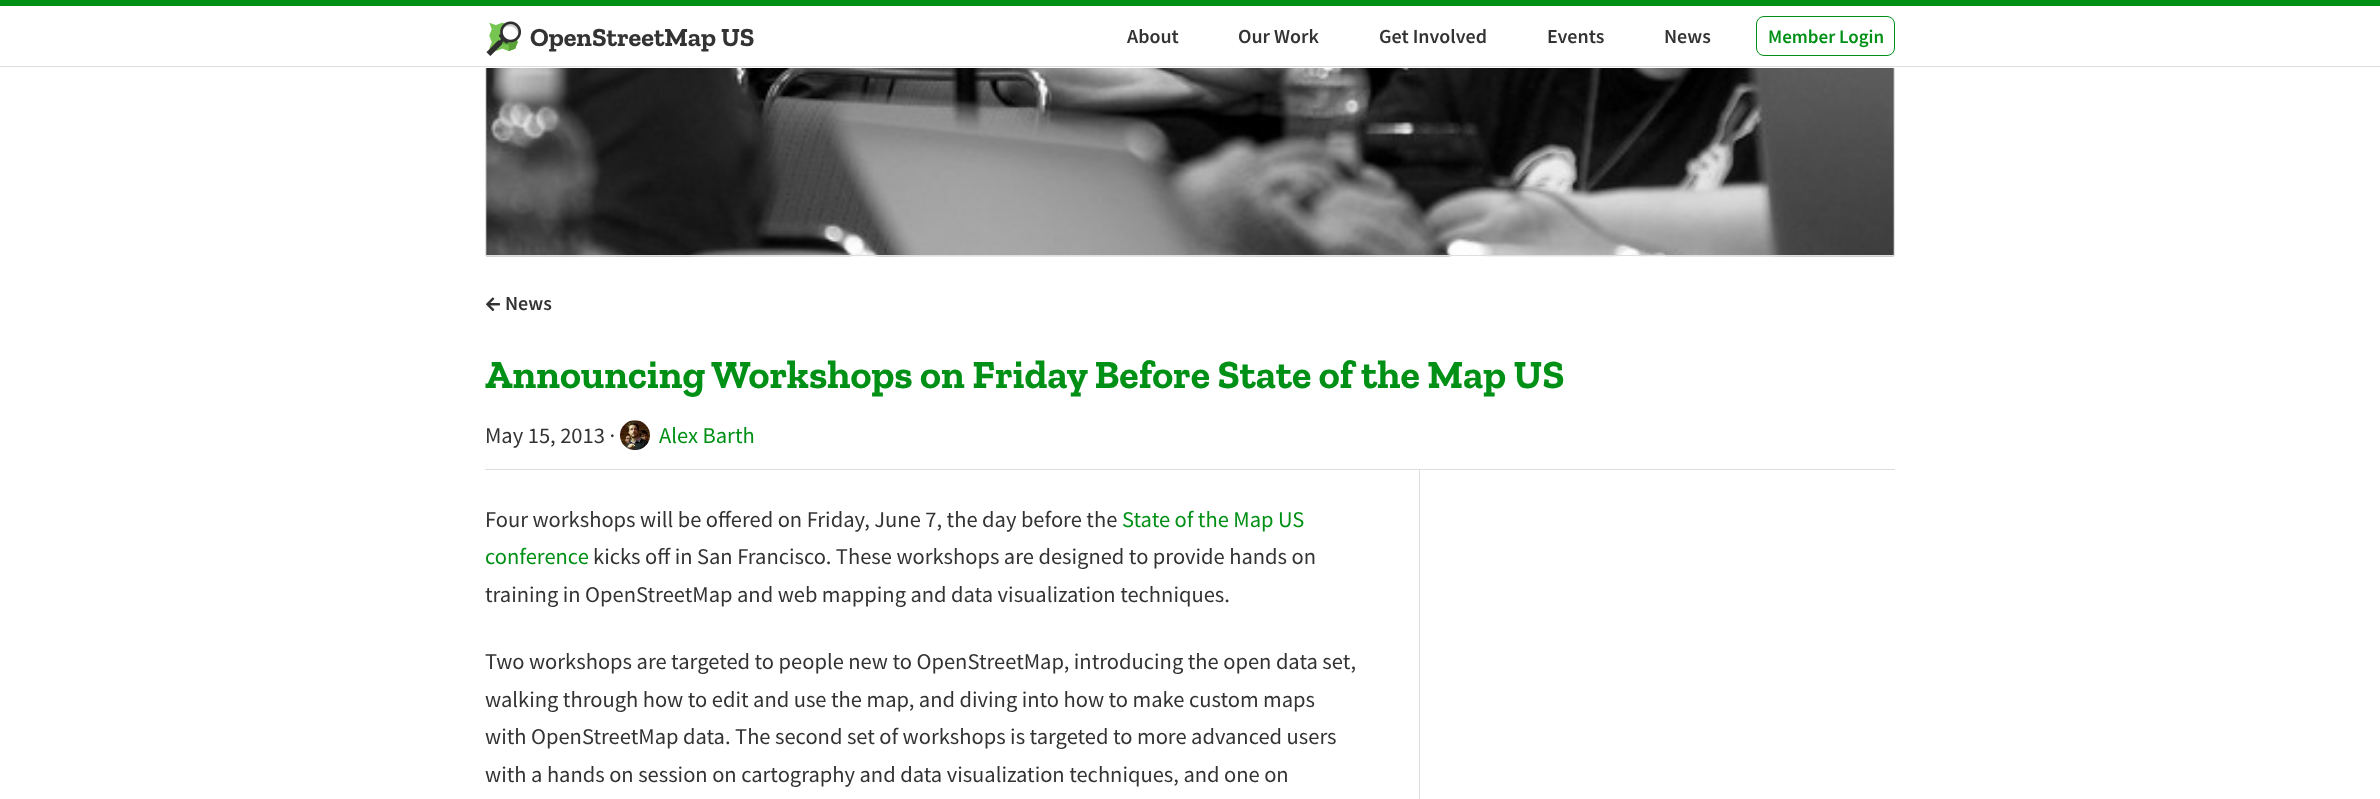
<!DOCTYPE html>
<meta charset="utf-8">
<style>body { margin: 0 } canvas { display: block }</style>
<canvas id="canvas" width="2380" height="799"></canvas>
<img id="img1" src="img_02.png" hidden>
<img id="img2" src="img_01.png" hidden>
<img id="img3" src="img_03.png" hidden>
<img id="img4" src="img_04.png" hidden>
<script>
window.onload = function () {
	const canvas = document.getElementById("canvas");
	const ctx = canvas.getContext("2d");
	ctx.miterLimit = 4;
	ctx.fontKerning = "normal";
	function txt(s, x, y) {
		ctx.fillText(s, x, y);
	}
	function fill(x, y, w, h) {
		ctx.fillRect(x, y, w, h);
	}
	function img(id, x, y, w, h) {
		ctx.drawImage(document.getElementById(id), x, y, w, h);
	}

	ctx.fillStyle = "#FFFFFF";
	fill(0, 0, 2380, 799);
	img("img1", 486, 68, 1408, 189);
	ctx.strokeStyle = "#DEDEDE";
	ctx.strokeRect(485.5, -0.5, 1409, 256);
	fill(485, 6, 1410, 62);
	ctx.fillStyle = "#009016";
	fill(0, 0, 2380, 6);
	ctx.fillStyle = "#DEDEDE";
	fill(0, 66, 2380, 1);
	img("img2", 486, 21, 35, 35);
	ctx.beginPath();
	ctx.roundRect(1756.5, 16.5, 138, 39, 7.5);
	ctx.strokeStyle = "#009016";
	ctx.stroke();
	img("img3", 486, 297, 14, 14);
	fill(485, 469, 1410, 1);
	img("img4", 620, 420, 30, 31);
	fill(1419, 470, 1, 329);
	ctx.font = "bold 26.25px Zilla Slab";
	ctx.fillStyle = "#333333";
	txt("OpenStreetMap US", 530, 46);
	ctx.font = "600 20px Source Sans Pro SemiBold";
	txt("About", 1127, 43);
	txt("Our Work", 1238, 43);
	txt("Get Involved", 1379, 43);
	txt("Events", 1547, 43);
	txt("News", 1664, 43);
	ctx.font = "600 19px Source Sans Pro SemiBold";
	ctx.fillStyle = "#009016";
	txt("Member Login", 1768, 43);
	ctx.font = "600 20px Source Sans Pro SemiBold";
	ctx.fillStyle = "#333333";
	txt("News", 505, 310);
	ctx.font = "bold 40px Zilla Slab";
	ctx.fillStyle = "#009016";
	txt("Announcing Workshops on Friday Before State of the Map US", 485, 388);
	ctx.font = "22.5px Source Sans Pro";
	ctx.fillStyle = "#333333";
	txt("May 15, 2013 ·", 485, 443);
	ctx.fillStyle = "#009016";
	txt("Alex Barth", 659, 443);
	ctx.fillStyle = "#333333";
	txt("Four workshops will be offered on Friday, June 7, the day before the", 485, 527);
	ctx.fillStyle = "#009016";
	txt("State of the Map US", 1122, 527);
	txt("conference", 485, 564);
	ctx.fillStyle = "#333333";
	txt("kicks off in San Francisco. These workshops are designed to provide hands on", 593, 564);
	txt("training in OpenStreetMap and web mapping and data visualization techniques.", 485, 602);
	txt("Two workshops are targeted to people new to OpenStreetMap, introducing the open data set,", 485, 669);
	txt("walking through how to edit and use the map, and diving into how to make custom maps", 485, 707);
	txt("with OpenStreetMap data. The second set of workshops is targeted to more advanced users", 485, 744);
	txt("with a hands on session on cartography and data visualization techniques, and one on", 485, 782);
};
</script>
